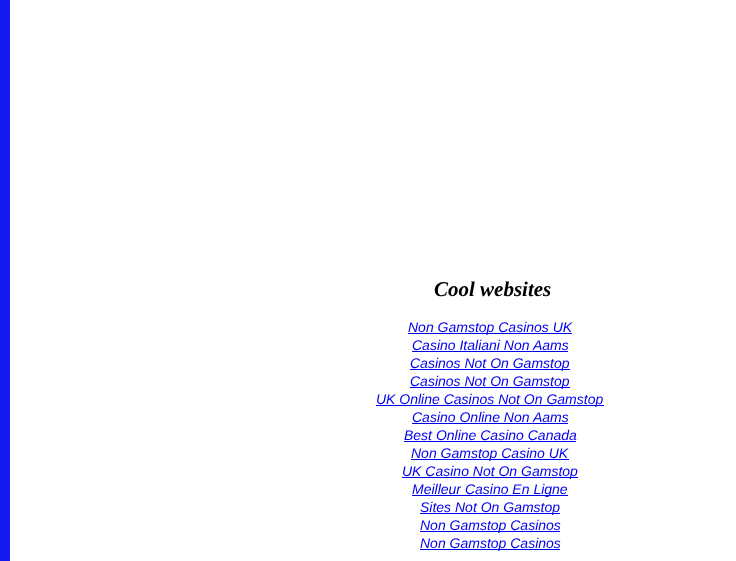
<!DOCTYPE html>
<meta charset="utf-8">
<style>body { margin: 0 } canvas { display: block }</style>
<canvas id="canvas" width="736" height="561"></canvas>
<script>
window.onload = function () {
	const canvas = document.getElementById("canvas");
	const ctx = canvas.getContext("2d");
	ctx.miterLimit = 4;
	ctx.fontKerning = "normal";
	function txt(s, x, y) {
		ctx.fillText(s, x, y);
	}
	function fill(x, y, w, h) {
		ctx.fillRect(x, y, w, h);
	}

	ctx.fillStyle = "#1618F2";
	fill(0, 0, 736, 561);
	ctx.fillStyle = "#FFFFFF";
	fill(10, 0, 726, 561);
	ctx.fillStyle = "#0000EE";
	fill(408, 333, 164, 1);
	fill(412, 351, 156, 1);
	fill(410, 369, 160, 1);
	fill(410, 387, 160, 1);
	fill(376, 405, 228, 1);
	fill(412, 423, 156, 1);
	fill(404, 441, 172, 1);
	fill(411, 459, 158, 1);
	fill(402, 477, 176, 1);
	fill(412, 495, 156, 1);
	fill(420, 513, 140, 1);
	fill(420, 531, 140, 1);
	fill(420, 549, 140, 1);
	ctx.font = "italic bold 21px Liberation Serif";
	ctx.fillStyle = "#000000";
	txt("Cool websites", 434, 296);
	ctx.font = "italic 14px Liberation Sans";
	ctx.fillStyle = "#0000EE";
	txt("Non Gamstop Casinos UK", 408, 332);
	txt("Casino Italiani Non Aams", 412, 350);
	txt("Casinos Not On Gamstop", 410, 368);
	txt("Casinos Not On Gamstop", 410, 386);
	txt("UK Online Casinos Not On Gamstop", 376, 404);
	txt("Casino Online Non Aams", 412, 422);
	txt("Best Online Casino Canada", 404, 440);
	txt("Non Gamstop Casino UK", 411, 458);
	txt("UK Casino Not On Gamstop", 402, 476);
	txt("Meilleur Casino En Ligne", 412, 494);
	txt("Sites Not On Gamstop", 420, 512);
	txt("Non Gamstop Casinos", 420, 530);
	txt("Non Gamstop Casinos", 420, 548);
};
</script>
